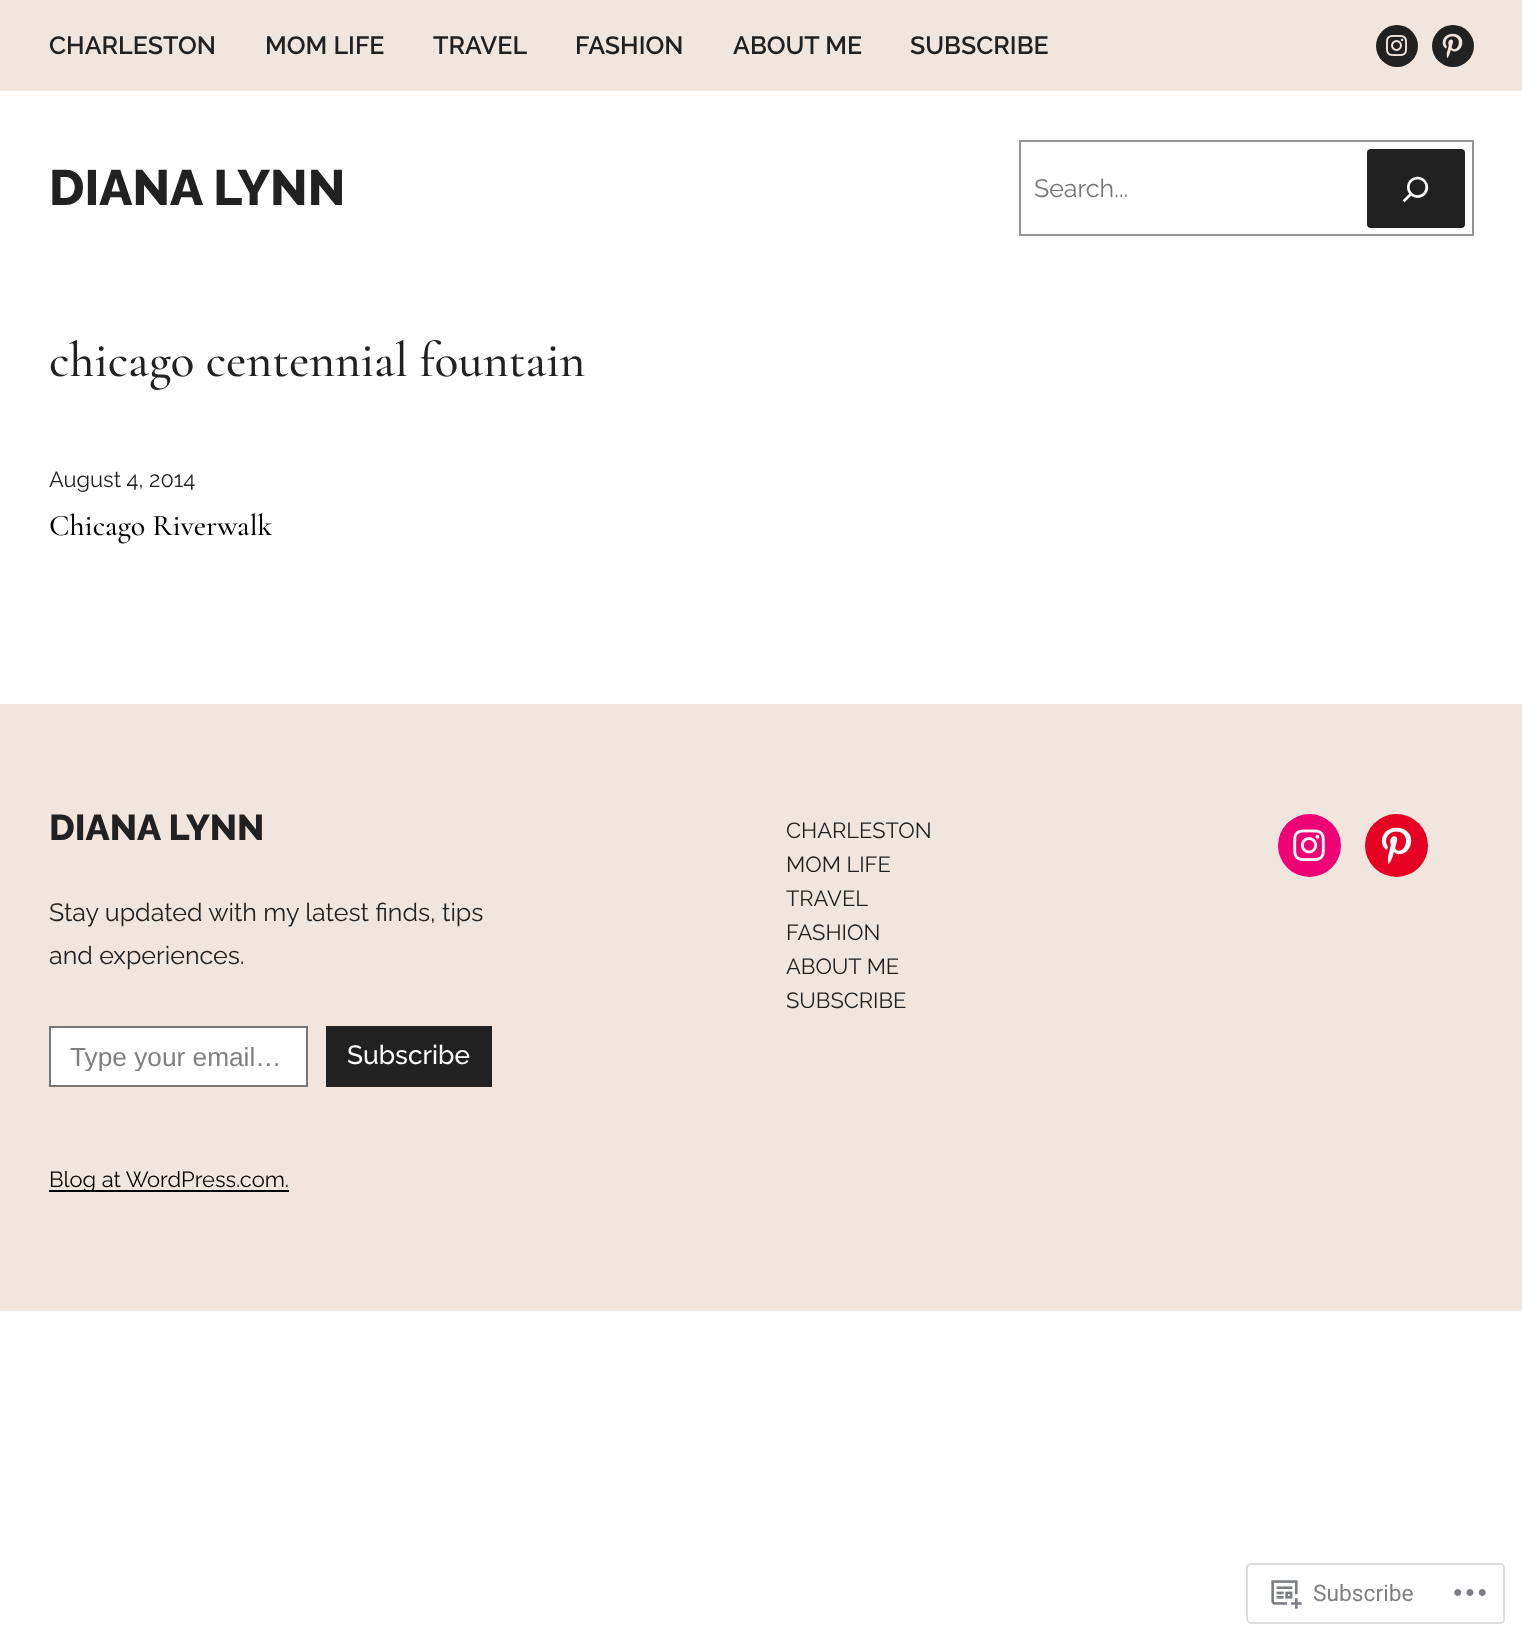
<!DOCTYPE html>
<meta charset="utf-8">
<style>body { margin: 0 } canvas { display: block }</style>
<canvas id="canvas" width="1522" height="1641"></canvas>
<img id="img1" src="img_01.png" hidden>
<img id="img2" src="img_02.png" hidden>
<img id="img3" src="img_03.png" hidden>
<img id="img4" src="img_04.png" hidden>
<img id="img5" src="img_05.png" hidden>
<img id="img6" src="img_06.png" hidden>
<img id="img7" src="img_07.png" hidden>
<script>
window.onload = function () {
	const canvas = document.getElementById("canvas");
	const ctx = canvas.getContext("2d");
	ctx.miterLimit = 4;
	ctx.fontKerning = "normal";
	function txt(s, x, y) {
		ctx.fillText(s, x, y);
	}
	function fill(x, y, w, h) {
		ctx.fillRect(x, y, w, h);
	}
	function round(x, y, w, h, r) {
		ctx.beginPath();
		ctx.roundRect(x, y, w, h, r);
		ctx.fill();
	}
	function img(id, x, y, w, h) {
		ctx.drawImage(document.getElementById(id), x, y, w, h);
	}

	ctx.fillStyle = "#FFFFFF";
	fill(0, 0, 1522, 1641);
	ctx.fillStyle = "#F1E6DE";
	fill(0, 0, 1522, 91);
	ctx.fillStyle = "#212121";
	ctx.beginPath();
	ctx.arc(1397, 46, 21, 0, Math.PI * 2);
	ctx.fill();
	img("img1", 1386, 35, 21, 21);
	ctx.beginPath();
	ctx.arc(1453, 46, 21, 0, Math.PI * 2);
	ctx.fill();
	img("img2", 1442, 33, 21, 25);
	ctx.strokeStyle = "#949494";
	ctx.lineWidth = 2;
	ctx.strokeRect(1020, 141, 453, 94);
	round(1367, 149, 98, 79, 4);
	img("img3", 1402, 176, 27, 27);
	ctx.fillStyle = "#F1E6DE";
	fill(0, 704, 1522, 607);
	ctx.fillStyle = "#FFFFFF";
	ctx.beginPath();
	ctx.rect(50, 1027, 257, 59);
	ctx.fill();
	ctx.strokeStyle = "#767676";
	ctx.stroke();
	ctx.fillStyle = "#212121";
	fill(326, 1026, 166, 61);
	ctx.fillStyle = "#F00075";
	ctx.beginPath();
	ctx.arc(1309.5, 845.5, 31.5, 0, Math.PI * 2);
	ctx.fill();
	img("img4", 1293, 829, 32, 32);
	ctx.fillStyle = "#E60122";
	ctx.beginPath();
	ctx.arc(1396.5, 845.5, 31.5, 0, Math.PI * 2);
	ctx.fill();
	img("img5", 1381, 827, 31, 37);
	ctx.fillStyle = "#000000";
	fill(49, 1190, 240, 2);
	ctx.beginPath();
	ctx.roundRect(1247, 1564, 257, 59, 4);
	ctx.strokeStyle = "#DDDDDF";
	ctx.stroke();
	img("img6", 1271, 1580, 31, 29);
	img("img7", 1454, 1589, 32, 7);
	ctx.font = "600 25px Raleway";
	ctx.fillStyle = "#212121";
	txt("CHARLESTON", 49, 54);
	txt("MOM LIFE", 265, 54);
	txt("TRAVEL", 433, 54);
	txt("FASHION", 575, 54);
	txt("ABOUT ME", 733, 54);
	txt("SUBSCRIBE", 910, 54);
	ctx.font = "800 49.5px Raleway";
	txt("DIANA LYNN", 49, 205);
	ctx.font = "25px Raleway";
	ctx.fillStyle = "#757575";
	txt("Search...", 1034, 197);
	ctx.font = "500 49.5px Cormorant Garamond";
	ctx.fillStyle = "#212121";
	txt("chicago centennial fountain", 49, 376);
	ctx.font = "21.9px Raleway";
	txt("August 4, 2014", 49, 487);
	ctx.font = "500 30px Cormorant Garamond";
	ctx.fillStyle = "#000000";
	txt("Chicago Riverwalk", 49, 535);
	ctx.font = "800 36px Raleway";
	ctx.fillStyle = "#212121";
	txt("DIANA LYNN", 49, 840);
	ctx.font = "25px Raleway";
	txt("Stay updated with my latest finds, tips", 49, 921);
	txt("and experiences.", 49, 964);
	ctx.save();
	ctx.beginPath();
	ctx.rect(70, 1041, 217, 30);
	ctx.clip();
	ctx.font = "26.25px Liberation Sans";
	ctx.fillStyle = "#808080";
	txt("Type your email…", 70, 1066);
	ctx.restore();
	ctx.font = "500 26.25px Raleway";
	ctx.fillStyle = "#FFFFFF";
	txt("Subscribe", 347, 1064);
	ctx.font = "21.9px Raleway";
	ctx.fillStyle = "#212121";
	txt("CHARLESTON", 786, 838);
	txt("MOM LIFE", 786, 872);
	txt("TRAVEL", 786, 906);
	txt("FASHION", 786, 940);
	txt("ABOUT ME", 786, 974);
	txt("SUBSCRIBE", 786, 1008);
	ctx.fillStyle = "#000000";
	txt("Blog at WordPress.com.", 49, 1187);
	ctx.font = "22.75px Roboto";
	ctx.fillStyle = "#808080";
	txt("Subscribe", 1313, 1601);
};
</script>
